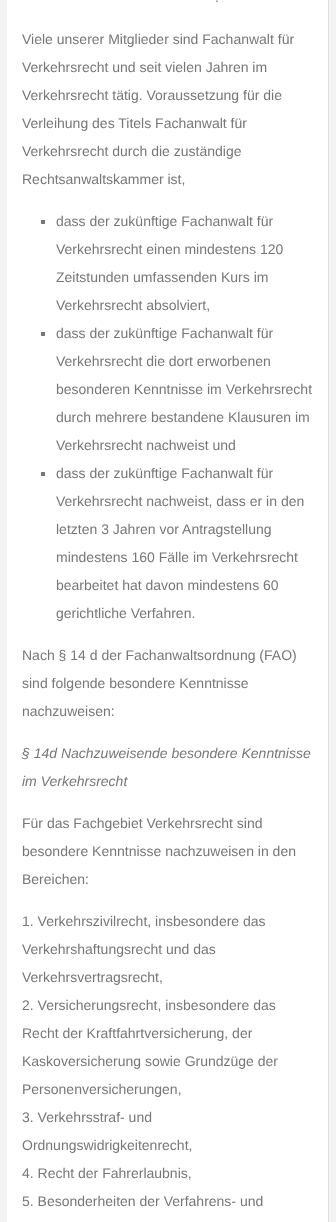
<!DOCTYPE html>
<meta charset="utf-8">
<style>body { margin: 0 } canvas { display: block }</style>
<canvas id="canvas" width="336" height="1222"></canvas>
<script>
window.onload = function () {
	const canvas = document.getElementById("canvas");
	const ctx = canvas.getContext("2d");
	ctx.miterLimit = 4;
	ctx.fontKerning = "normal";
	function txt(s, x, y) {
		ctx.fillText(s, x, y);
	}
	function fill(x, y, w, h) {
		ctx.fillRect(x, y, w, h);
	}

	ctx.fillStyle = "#F3F3F3";
	fill(0, 0, 336, 1222);
	ctx.fillStyle = "#FFFFFF";
	fill(7, 0, 321, 1222);
	ctx.fillStyle = "#E1E1E1";
	fill(328, 0, 1, 1222);
	ctx.fillStyle = "#777777";
	fill(41, 220, 4, 4);
	fill(41, 332, 4, 4);
	fill(41, 472, 4, 4);
	ctx.font = "14px Liberation Sans";
	txt(".", 215, 2);
	txt("Viele unserer Mitglieder sind Fachanwalt für", 22, 44);
	txt("Verkehrsrecht und seit vielen Jahren im", 22, 72);
	txt("Verkehrsrecht tätig. Voraussetzung für die", 22, 100);
	txt("Verleihung des Titels Fachanwalt für", 22, 128);
	txt("Verkehrsrecht durch die zuständige", 22, 156);
	txt("Rechtsanwaltskammer ist,", 22, 184);
	txt("dass der zukünftige Fachanwalt für", 56, 226);
	txt("Verkehrsrecht einen mindestens 120", 56, 254);
	txt("Zeitstunden umfassenden Kurs im", 56, 282);
	txt("Verkehrsrecht absolviert,", 56, 310);
	txt("dass der zukünftige Fachanwalt für", 56, 338);
	txt("Verkehrsrecht die dort erworbenen", 56, 366);
	txt("besonderen Kenntnisse im Verkehrsrecht", 56, 394);
	txt("durch mehrere bestandene Klausuren im", 56, 422);
	txt("Verkehrsrecht nachweist und", 56, 450);
	txt("dass der zukünftige Fachanwalt für", 56, 478);
	txt("Verkehrsrecht nachweist, dass er in den", 56, 506);
	txt("letzten 3 Jahren vor Antragstellung", 56, 534);
	txt("mindestens 160 Fälle im Verkehrsrecht", 56, 562);
	txt("bearbeitet hat davon mindestens 60", 56, 590);
	txt("gerichtliche Verfahren.", 56, 618);
	txt("Nach § 14 d der Fachanwaltsordnung (FAO)", 22, 660);
	txt("sind folgende besondere Kenntnisse", 22, 688);
	txt("nachzuweisen:", 22, 716);
	ctx.font = "italic 14px Liberation Sans";
	txt("§ 14d Nachzuweisende besondere Kenntnisse", 22, 758);
	txt("im Verkehrsrecht", 22, 786);
	ctx.font = "14px Liberation Sans";
	txt("Für das Fachgebiet Verkehrsrecht sind", 22, 828);
	txt("besondere Kenntnisse nachzuweisen in den", 22, 856);
	txt("Bereichen:", 22, 884);
	txt("1. Verkehrszivilrecht, insbesondere das", 22, 926);
	txt("Verkehrshaftungsrecht und das", 22, 954);
	txt("Verkehrsvertragsrecht,", 22, 982);
	txt("2. Versicherungsrecht, insbesondere das", 22, 1010);
	txt("Recht der Kraftfahrtversicherung, der", 22, 1038);
	txt("Kaskoversicherung sowie Grundzüge der", 22, 1066);
	txt("Personenversicherungen,", 22, 1094);
	txt("3. Verkehrsstraf- und", 22, 1122);
	txt("Ordnungswidrigkeitenrecht,", 22, 1150);
	txt("4. Recht der Fahrerlaubnis,", 22, 1178);
	txt("5. Besonderheiten der Verfahrens- und", 22, 1206);
};
</script>
